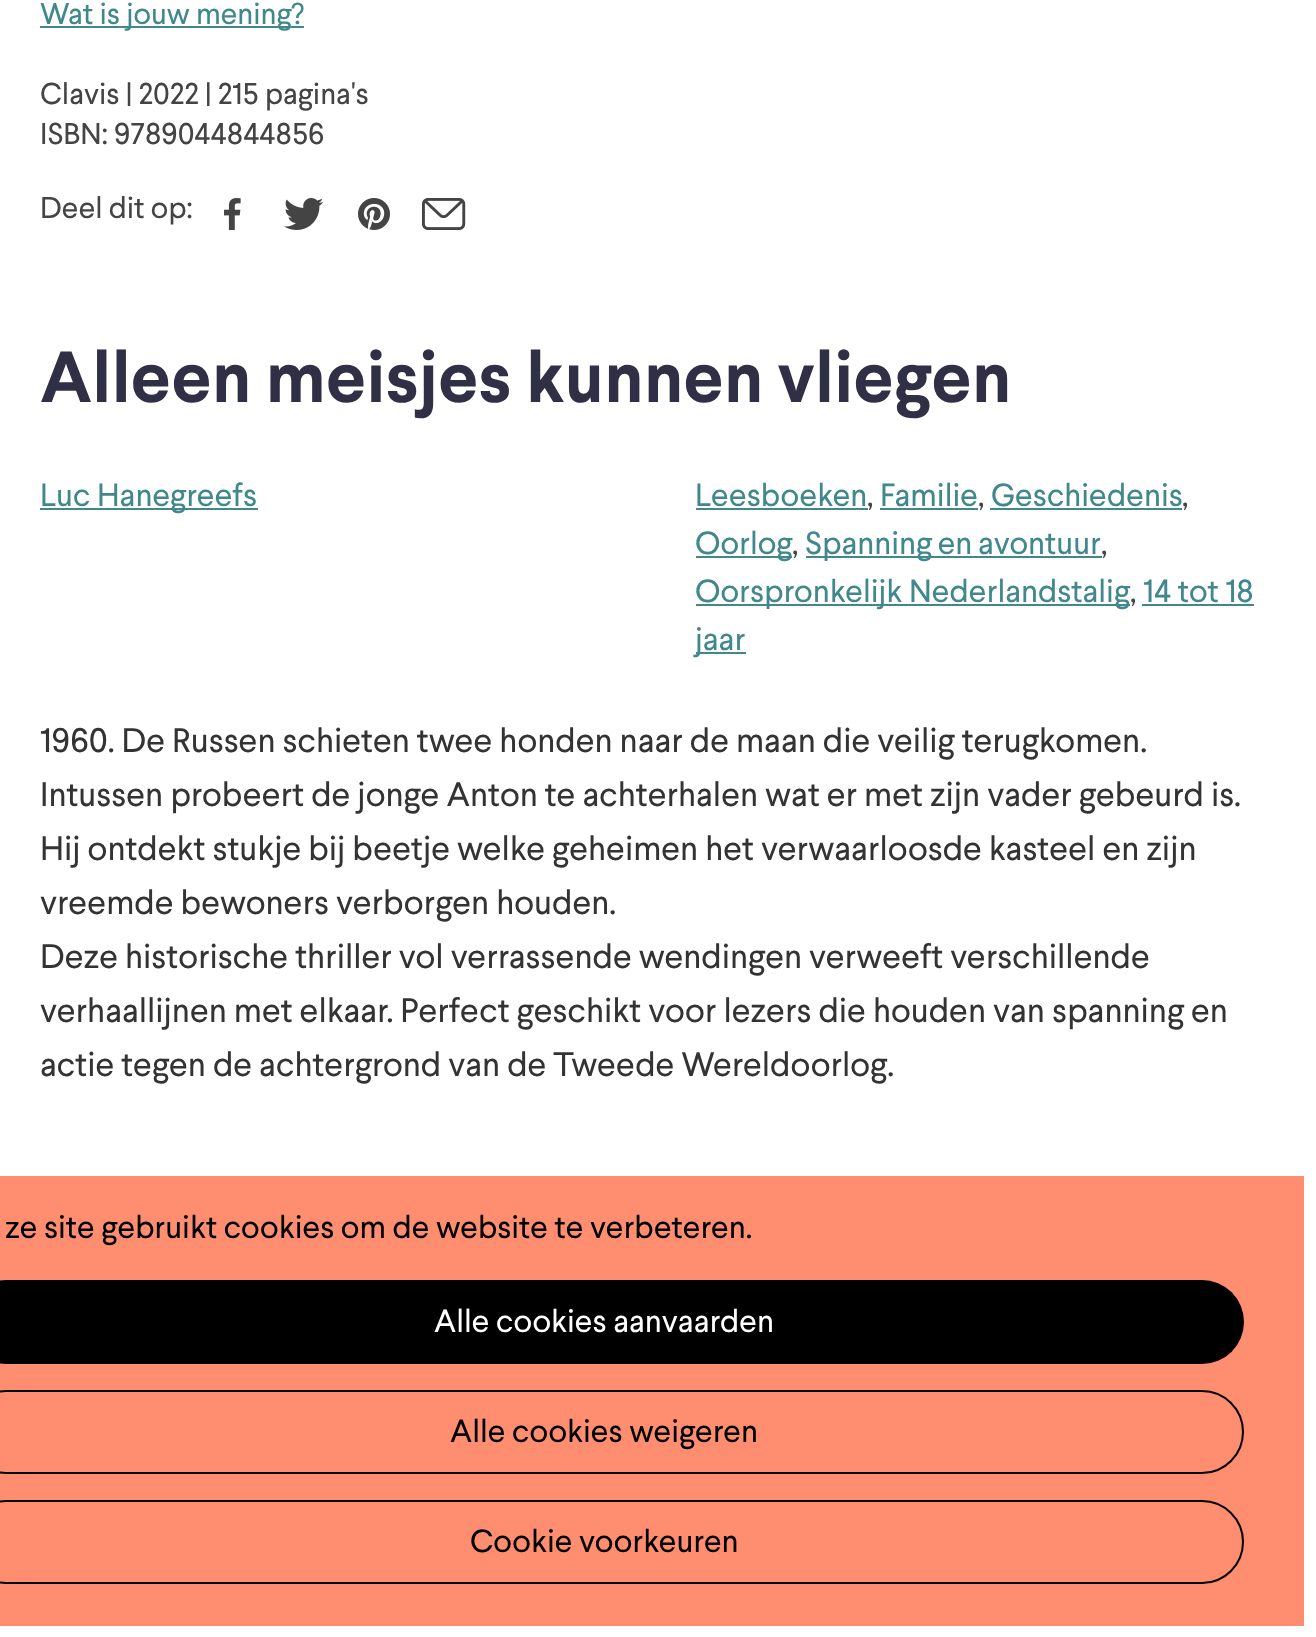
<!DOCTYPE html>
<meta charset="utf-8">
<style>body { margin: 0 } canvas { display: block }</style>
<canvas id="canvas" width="1316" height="1637"></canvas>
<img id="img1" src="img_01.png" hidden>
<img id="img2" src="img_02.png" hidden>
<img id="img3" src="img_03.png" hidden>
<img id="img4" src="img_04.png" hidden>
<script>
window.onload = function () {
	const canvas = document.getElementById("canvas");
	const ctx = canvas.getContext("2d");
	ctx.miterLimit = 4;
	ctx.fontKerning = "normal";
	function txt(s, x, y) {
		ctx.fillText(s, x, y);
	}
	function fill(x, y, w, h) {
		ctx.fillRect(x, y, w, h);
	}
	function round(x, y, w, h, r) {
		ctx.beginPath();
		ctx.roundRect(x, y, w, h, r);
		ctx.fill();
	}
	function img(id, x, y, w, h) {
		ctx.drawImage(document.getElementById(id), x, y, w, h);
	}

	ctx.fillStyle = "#FFFFFF";
	fill(0, 0, 1316, 1637);
	ctx.fillStyle = "#40888C";
	fill(40, 26, 264, 2);
	img("img1", 224, 198, 17, 32);
	img("img2", 284, 198, 40, 32);
	img("img3", 358, 198, 32, 32);
	img("img4", 422, 198, 44, 32);
	fill(40, 508, 218, 2);
	fill(696, 508, 172, 2);
	fill(880, 508, 98, 2);
	fill(990, 508, 192, 2);
	fill(696, 556, 96, 2);
	fill(806, 556, 296, 2);
	fill(696, 604, 434, 2);
	fill(1142, 604, 112, 2);
	fill(696, 652, 50, 2);
	ctx.fillStyle = "#FF8D70";
	fill(0, 1176, 1304, 450);
	ctx.fillStyle = "#000000";
	round(-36, 1280, 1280, 84, 42);
	ctx.beginPath();
	ctx.roundRect(-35, 1391, 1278, 82, 41);
	ctx.strokeStyle = "#000000";
	ctx.lineWidth = 2;
	ctx.stroke();
	ctx.beginPath();
	ctx.roundRect(-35, 1501, 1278, 82, 41);
	ctx.stroke();
	ctx.font = "30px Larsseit";
	ctx.fillStyle = "#40888C";
	txt("Wat is jouw mening?", 40, 24);
	ctx.fillStyle = "#444444";
	txt("Clavis | 2022 | 215 pagina's", 40, 104);
	txt("ISBN: 9789044844856", 40, 144);
	txt("Deel dit op:", 40, 218);
	ctx.font = "bold 72px Larsseit";
	ctx.fillStyle = "#2F3045";
	txt("Alleen meisjes kunnen vliegen", 40, 402);
	ctx.font = "32px Larsseit";
	ctx.fillStyle = "#40888C";
	txt("Luc Hanegreefs", 40, 506);
	txt("Leesboeken", 695, 506);
	ctx.fillStyle = "#444444";
	txt(",", 867, 506);
	ctx.fillStyle = "#40888C";
	txt("Familie", 880, 506);
	ctx.fillStyle = "#444444";
	txt(",", 978, 506);
	ctx.fillStyle = "#40888C";
	txt("Geschiedenis", 991, 506);
	ctx.fillStyle = "#444444";
	txt(",", 1182, 506);
	ctx.fillStyle = "#40888C";
	txt("Oorlog", 695, 554);
	ctx.fillStyle = "#444444";
	txt(",", 792, 554);
	ctx.wordSpacing = "-1px";
	ctx.fillStyle = "#40888C";
	txt("Spanning en avontuur", 805, 554);
	ctx.wordSpacing = "0px";
	ctx.fillStyle = "#444444";
	txt(",", 1101, 554);
	ctx.fillStyle = "#40888C";
	txt("Oorspronkelijk Nederlandstalig", 695, 602);
	ctx.fillStyle = "#444444";
	txt(",", 1130, 602);
	ctx.fillStyle = "#40888C";
	txt("14 tot 18", 1143, 602);
	txt("jaar", 695, 650);
	ctx.font = "34px Larsseit";
	ctx.fillStyle = "#333333";
	txt("1960. De Russen schieten twee honden naar de maan die veilig terugkomen.", 40, 752);
	txt("Intussen probeert de jonge Anton te achterhalen wat er met zijn vader gebeurd is.", 40, 806);
	txt("Hij ontdekt stukje bij beetje welke geheimen het verwaarloosde kasteel en zijn", 40, 860);
	txt("vreemde bewoners verborgen houden.", 40, 914);
	txt("Deze historische thriller vol verrassende wendingen verweeft verschillende", 40, 968);
	txt("verhaallijnen met elkaar. Perfect geschikt voor lezers die houden van spanning en", 40, 1022);
	txt("actie tegen de achtergrond van de Tweede Wereldoorlog.", 40, 1076);
	ctx.font = "32px Larsseit";
	ctx.fillStyle = "#000000";
	txt("ze site gebruikt cookies om de website te verbeteren.", 5, 1238);
	ctx.fillStyle = "#FFFFFF";
	txt("Alle cookies aanvaarden", 434, 1332);
	ctx.fillStyle = "#000000";
	txt("Alle cookies weigeren", 450, 1442);
	txt("Cookie voorkeuren", 470, 1552);
};
</script>
